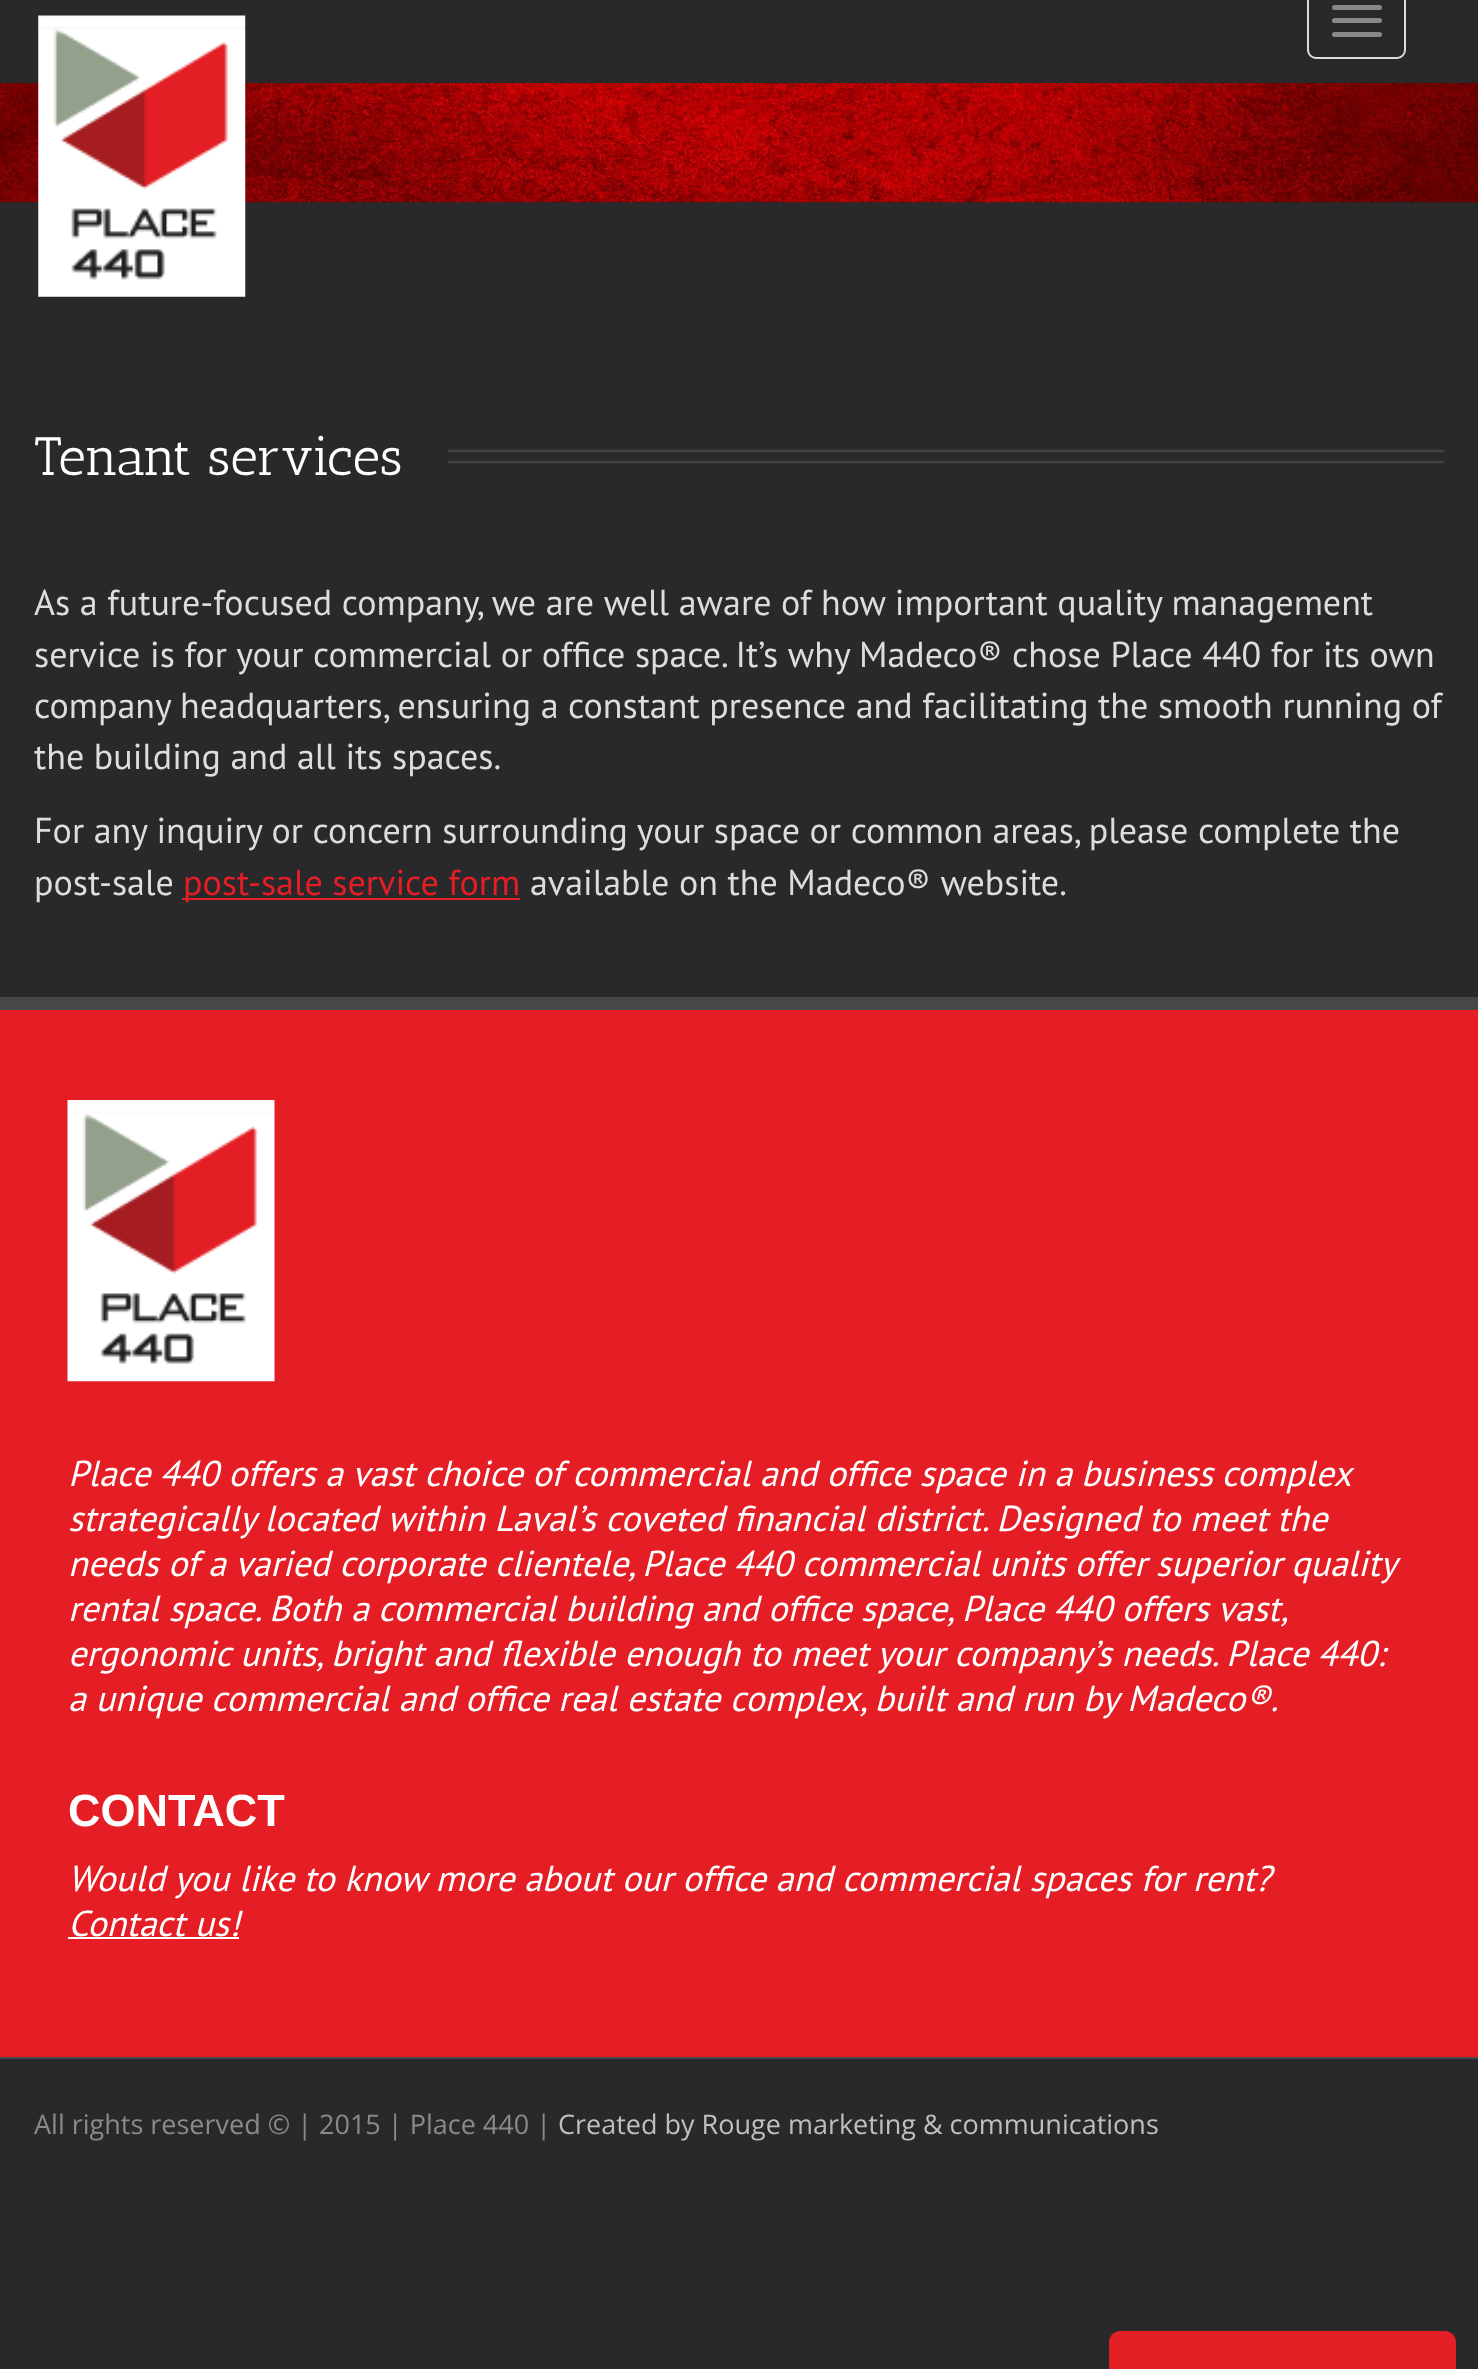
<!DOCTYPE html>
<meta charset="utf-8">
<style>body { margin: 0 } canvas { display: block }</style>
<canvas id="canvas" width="1478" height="2369"></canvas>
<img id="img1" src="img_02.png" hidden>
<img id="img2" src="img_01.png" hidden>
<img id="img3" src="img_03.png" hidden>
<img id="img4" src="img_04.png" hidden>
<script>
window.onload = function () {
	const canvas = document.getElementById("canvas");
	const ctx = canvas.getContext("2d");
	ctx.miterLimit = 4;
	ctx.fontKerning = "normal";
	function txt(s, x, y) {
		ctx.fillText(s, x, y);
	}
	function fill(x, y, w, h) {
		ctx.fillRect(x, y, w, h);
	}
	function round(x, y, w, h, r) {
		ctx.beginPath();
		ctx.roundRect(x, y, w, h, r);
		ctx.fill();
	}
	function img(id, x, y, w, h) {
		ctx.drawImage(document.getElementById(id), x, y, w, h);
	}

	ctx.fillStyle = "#29292B";
	fill(0, 0, 1478, 2369);
	img("img1", 0, 83, 1478, 120);
	img("img2", 38, 15, 208, 282);
	ctx.beginPath();
	ctx.roundRect(1308, -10, 97, 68, 8);
	ctx.strokeStyle = "#DDDDDD";
	ctx.lineWidth = 2;
	ctx.stroke();
	ctx.fillStyle = "#888888";
	round(1332, 5, 50, 5, 2.5);
	round(1332, 18, 50, 5, 2.5);
	round(1332, 32, 50, 5, 2.5);
	img("img3", 33, 449, 1412, 15);
	ctx.fillStyle = "#29292A";
	fill(34, 449, 414, 15);
	ctx.fillStyle = "#E41E25";
	fill(182, 898, 338, 2);
	ctx.fillStyle = "#E51E25";
	fill(0, 1010, 1478, 1047);
	ctx.fillStyle = "#484747";
	fill(0, 997, 1478, 13);
	fill(0, 2057, 1478, 2);
	img("img4", 67, 1100, 208, 282);
	ctx.fillStyle = "#FFFFFF";
	fill(68, 1937, 171, 2);
	ctx.fillStyle = "#E41E25";
	ctx.beginPath();
	ctx.moveTo(1120, 2331);
	ctx.lineTo(1445, 2331);
	ctx.bezierCurveTo(1451, 2331, 1456, 2336, 1456, 2342);
	ctx.lineTo(1456, 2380);
	ctx.lineTo(1109, 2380);
	ctx.lineTo(1109, 2342);
	ctx.bezierCurveTo(1109, 2336, 1114, 2331, 1120, 2331);
	ctx.closePath();
	ctx.fill();
	ctx.font = "54px Antic Slab";
	ctx.fillStyle = "#FFFFFF";
	txt("Tenant services", 34, 475);
	ctx.font = "36px PT Sans";
	ctx.fillStyle = "#DDDDDD";
	txt("As a future-focused company, we are well aware of how important quality management", 34, 615);
	txt("service is for your commercial or office space. It’s why Madeco® chose Place 440 for its own", 34, 667);
	txt("company headquarters, ensuring a constant presence and facilitating the smooth running of", 34, 718);
	txt("the building and all its spaces.", 34, 769);
	txt("For any inquiry or concern surrounding your space or common areas, please complete the", 34, 843);
	txt("post-sale", 34, 895);
	ctx.fillStyle = "#E41E25";
	txt("post-sale service form", 183, 895);
	ctx.fillStyle = "#DDDDDD";
	txt("available on the Madeco® website.", 530, 895);
	ctx.font = "italic 36px PT Sans";
	ctx.fillStyle = "#FFFFFF";
	txt("Place 440 offers a vast choice of commercial and office space in a", 68, 1486);
	ctx.wordSpacing = "-1px";
	txt("business complex", 1081, 1486);
	ctx.wordSpacing = "0px";
	txt("strategically located within Laval’s coveted financial district. Designed to meet the", 68, 1531);
	txt("needs of a varied corporate clientele,", 68, 1576);
	ctx.wordSpacing = "-0.25px";
	txt("Place 440 commercial units offer superior quality", 642, 1576);
	ctx.wordSpacing = "0px";
	txt("rental space. Both a", 68, 1621);
	ctx.wordSpacing = "-0.25px";
	txt("commercial building and office space, Place 440 offers vast,", 378, 1621);
	ctx.wordSpacing = "0px";
	txt("ergonomic units, bright and flexible enough to meet your company’s needs. Place 440:", 68, 1666);
	txt("a unique commercial and office real estate complex, built and run by Madeco®.", 68, 1711);
	ctx.font = "bold 45px Liberation Sans";
	txt("CONTACT", 68, 1826);
	ctx.font = "italic 36px PT Sans";
	txt("Would you like to know more about our office and commercial spaces for rent?", 68, 1891);
	txt("Contact us!", 68, 1936);
	ctx.font = "27px Open Sans";
	ctx.fillStyle = "#8C8989";
	txt("All rights reserved © | 2015 | Place 440 |", 34, 2134);
	ctx.fillStyle = "#BFBFBF";
	txt("Created by Rouge marketing & communications", 558, 2134);
};
</script>
